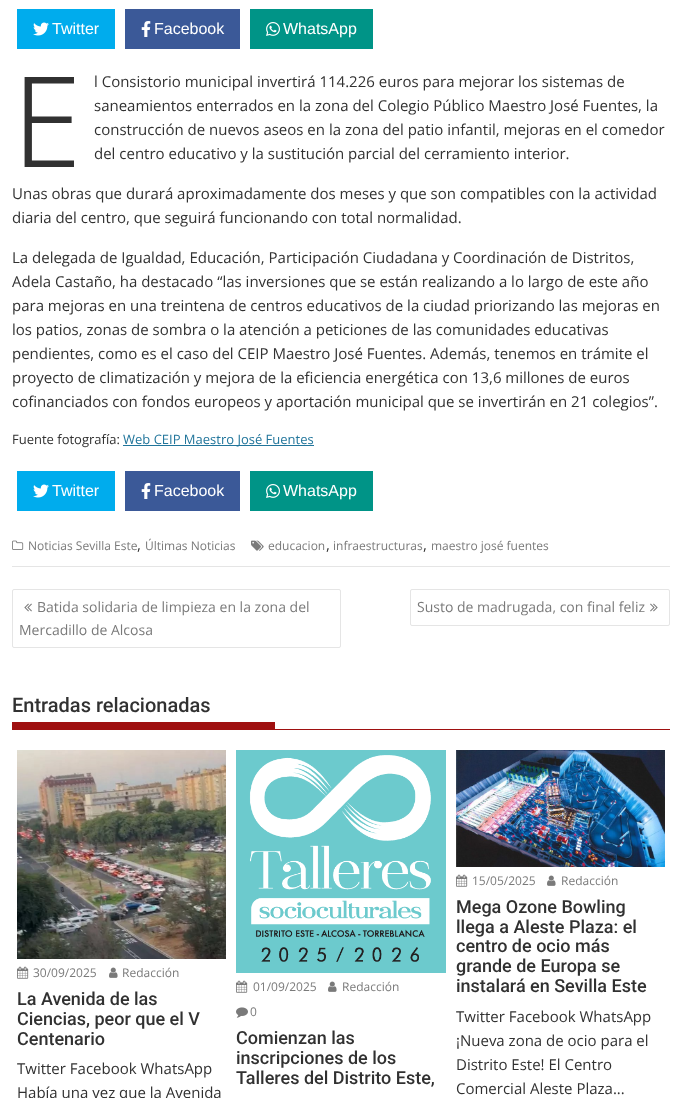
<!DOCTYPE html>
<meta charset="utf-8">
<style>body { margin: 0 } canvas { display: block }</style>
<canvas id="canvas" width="682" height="1098"></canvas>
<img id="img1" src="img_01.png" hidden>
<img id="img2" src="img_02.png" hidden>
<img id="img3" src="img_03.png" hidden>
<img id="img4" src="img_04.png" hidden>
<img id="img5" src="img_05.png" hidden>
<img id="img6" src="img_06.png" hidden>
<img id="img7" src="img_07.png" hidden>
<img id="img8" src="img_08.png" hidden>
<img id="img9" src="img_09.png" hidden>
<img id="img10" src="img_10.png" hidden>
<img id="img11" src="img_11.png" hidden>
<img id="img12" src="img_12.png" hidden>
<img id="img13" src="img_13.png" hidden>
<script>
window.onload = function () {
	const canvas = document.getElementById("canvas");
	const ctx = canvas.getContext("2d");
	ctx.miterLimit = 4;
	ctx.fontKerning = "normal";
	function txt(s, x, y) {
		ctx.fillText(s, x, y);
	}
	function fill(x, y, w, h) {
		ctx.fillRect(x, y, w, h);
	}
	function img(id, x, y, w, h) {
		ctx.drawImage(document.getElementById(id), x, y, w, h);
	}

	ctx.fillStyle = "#FFFFFF";
	fill(0, 0, 682, 1098);
	ctx.fillStyle = "#E5E5E5";
	fill(12, 566, 658, 1);
	ctx.fillStyle = "#00ACED";
	fill(17, 9, 98, 40);
	img("img1", 33, 22, 16, 14);
	ctx.fillStyle = "#3B5998";
	fill(125, 9, 115, 40);
	img("img2", 141, 21, 10, 16);
	ctx.fillStyle = "#009487";
	fill(250, 9, 123, 40);
	img("img3", 266, 22, 14, 14);
	ctx.fillStyle = "#21759B";
	fill(123, 445, 191, 1);
	ctx.fillStyle = "#00ACED";
	fill(17, 471, 98, 40);
	img("img1", 33, 484, 16, 14);
	ctx.fillStyle = "#3B5998";
	fill(125, 471, 115, 40);
	img("img2", 141, 483, 10, 16);
	ctx.fillStyle = "#009487";
	fill(250, 471, 123, 40);
	img("img3", 266, 484, 14, 14);
	img("img4", 12, 540, 12, 10);
	img("img5", 251, 540, 13, 11);
	ctx.beginPath();
	ctx.roundRect(12.5, 589.5, 328, 58, 1.5);
	ctx.strokeStyle = "#E5E5E5";
	ctx.stroke();
	img("img6", 24, 603, 8, 9);
	ctx.beginPath();
	ctx.roundRect(410.5, 589.5, 259, 36, 1.5);
	ctx.stroke();
	img("img7", 650, 603, 8, 9);
	ctx.fillStyle = "#9F1010";
	fill(12, 729, 658, 1);
	fill(12, 722, 263, 7);
	img("img8", 17, 750, 209, 209);
	img("img9", 17, 966, 12, 13);
	img("img10", 109, 967, 9, 11);
	img("img11", 236, 750, 210, 223);
	img("img9", 236, 980, 12, 13);
	img("img10", 328, 981, 9, 11);
	img("img12", 236, 1007, 12, 11);
	img("img13", 456, 750, 209, 117);
	img("img9", 456, 874, 12, 13);
	img("img10", 547, 875, 9, 11);
	ctx.font = "16px Liberation Sans";
	ctx.fillStyle = "#FFFFFF";
	txt("Twitter", 52, 34);
	txt("Facebook", 154, 34);
	txt("WhatsApp", 283, 34);
	ctx.font = "300 126px Noto Sans";
	ctx.fillStyle = "#313131";
	txt("E", 12, 167);
	ctx.font = "15px Open Sans";
	txt("l Consistorio municipal invertirá 114.226 euros para mejorar los sistemas de", 94, 87);
	txt("saneamientos enterrados en la zona del Colegio Público Maestro José Fuentes, la", 94, 111);
	txt("construcción de nuevos aseos en la zona del patio infantil, mejoras en el comedor", 94, 135);
	txt("del centro educativo y la sustitución parcial del cerramiento interior.", 94, 159);
	txt("Unas obras que durará aproximadamente dos meses y que son compatibles con la actividad", 12, 199);
	txt("diaria del centro, que seguirá funcionando con total normalidad.", 12, 223);
	txt("La delegada de Igualdad, Educación, Participación Ciudadana y Coordinación de Distritos,", 12, 263);
	txt("Adela Castaño, ha destacado “las inversiones que se están realizando a lo largo de este año", 12, 287);
	txt("para mejoras en una treintena de centros educativos de la ciudad priorizando las mejoras en", 12, 311);
	txt("los patios, zonas de sombra o la atención a peticiones de las comunidades educativas", 12, 335);
	txt("pendientes, como es el caso del CEIP Maestro José Fuentes. Además, tenemos en trámite el", 12, 359);
	txt("proyecto de climatización y mejora de la eficiencia energética con 13,6 millones de euros", 12, 383);
	txt("cofinanciados con fondos europeos y aportación municipal que se invertirán en 21 colegios”.", 12, 407);
	ctx.font = "13px Open Sans";
	txt("Fuente fotografía:", 12, 444);
	ctx.fillStyle = "#21759B";
	txt("Web CEIP Maestro José Fuentes", 123, 444);
	ctx.font = "16px Liberation Sans";
	ctx.fillStyle = "#FFFFFF";
	txt("Twitter", 52, 496);
	txt("Facebook", 154, 496);
	txt("WhatsApp", 283, 496);
	ctx.font = "12px Open Sans";
	ctx.fillStyle = "#7A7A7A";
	txt("Noticias Sevilla Este", 28, 550);
	ctx.font = "15px Open Sans";
	ctx.fillStyle = "#313131";
	txt(",", 137, 550);
	ctx.font = "12px Open Sans";
	ctx.fillStyle = "#7A7A7A";
	txt("Últimas Noticias", 145, 550);
	txt("educacion", 268, 550);
	ctx.font = "15px Open Sans";
	ctx.fillStyle = "#313131";
	txt(",", 326, 550);
	ctx.font = "12px Open Sans";
	ctx.fillStyle = "#7A7A7A";
	txt("infraestructuras", 333, 550);
	ctx.font = "15px Open Sans";
	ctx.fillStyle = "#313131";
	txt(",", 423, 550);
	ctx.font = "12px Open Sans";
	ctx.fillStyle = "#7A7A7A";
	txt("maestro josé fuentes", 431, 550);
	ctx.font = "14px Open Sans";
	txt("Batida solidaria de limpieza en la zona del", 37, 612);
	txt("Mercadillo de Alcosa", 19, 635);
	txt("Susto de madrugada, con final feliz", 417, 612);
	ctx.font = "500 20px Roboto";
	ctx.fillStyle = "#313131";
	txt("Entradas relacionadas", 12, 712);
	ctx.font = "12px Open Sans";
	ctx.fillStyle = "#7A7A7A";
	txt("30/09/2025", 33, 977);
	txt("Redacción", 122, 977);
	ctx.font = "500 18px Roboto";
	ctx.fillStyle = "#313131";
	txt("La Avenida de las", 17, 1005);
	txt("Ciencias, peor que el V", 17, 1025);
	txt("Centenario", 17, 1045);
	ctx.font = "15px Open Sans";
	txt("Twitter Facebook WhatsApp", 17, 1074);
	txt("Había una vez que la Avenida", 17, 1098);
	ctx.font = "12px Open Sans";
	ctx.fillStyle = "#7A7A7A";
	txt("01/09/2025", 253, 991);
	txt("Redacción", 342, 991);
	txt("0", 250, 1016);
	ctx.font = "500 18px Roboto";
	ctx.fillStyle = "#313131";
	txt("Comienzan las", 236, 1044);
	txt("inscripciones de los", 236, 1064);
	txt("Talleres del Distrito Este,", 236, 1084);
	ctx.font = "12px Open Sans";
	ctx.fillStyle = "#7A7A7A";
	txt("15/05/2025", 472, 885);
	txt("Redacción", 561, 885);
	ctx.font = "500 18px Roboto";
	ctx.fillStyle = "#313131";
	txt("Mega Ozone Bowling", 456, 913);
	txt("llega a Aleste Plaza: el", 456, 933);
	txt("centro de ocio más", 456, 952);
	txt("grande de Europa se", 456, 972);
	txt("instalará en Sevilla Este", 456, 992);
	ctx.font = "15px Open Sans";
	txt("Twitter Facebook WhatsApp", 456, 1022);
	txt("¡Nueva zona de ocio para el", 456, 1046);
	txt("Distrito Este! El Centro", 456, 1070);
	txt("Comercial Aleste Plaza...", 456, 1094);
};
</script>
